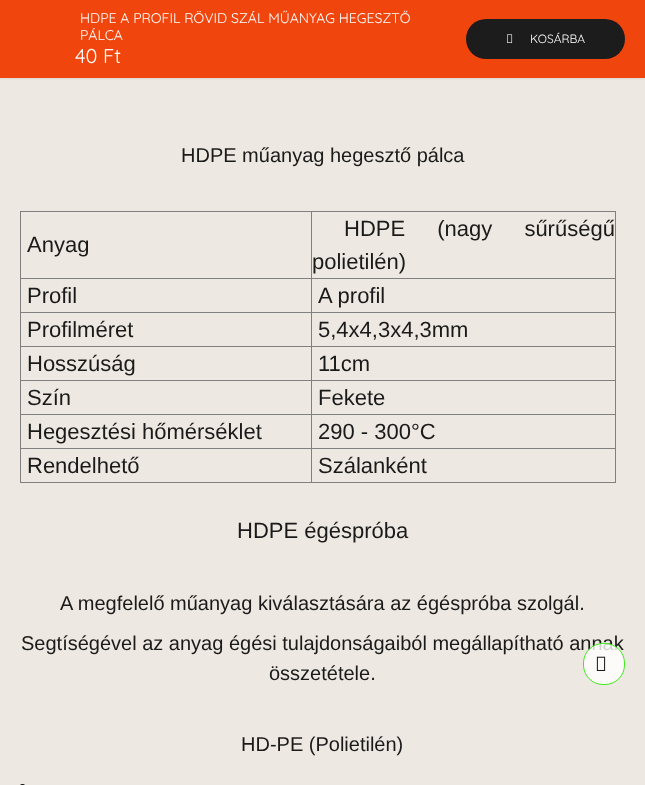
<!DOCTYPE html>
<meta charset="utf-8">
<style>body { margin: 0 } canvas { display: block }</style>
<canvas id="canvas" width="645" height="785"></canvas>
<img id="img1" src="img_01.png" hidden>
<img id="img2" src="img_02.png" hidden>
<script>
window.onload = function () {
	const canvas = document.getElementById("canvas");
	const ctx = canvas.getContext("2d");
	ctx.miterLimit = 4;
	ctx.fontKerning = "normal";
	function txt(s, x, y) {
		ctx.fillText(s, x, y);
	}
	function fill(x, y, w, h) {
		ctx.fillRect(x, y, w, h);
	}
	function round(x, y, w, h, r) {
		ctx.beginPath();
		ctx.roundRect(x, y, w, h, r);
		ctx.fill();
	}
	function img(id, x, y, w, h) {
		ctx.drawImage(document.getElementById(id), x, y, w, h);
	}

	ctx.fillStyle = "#EDE8E1";
	fill(0, 0, 645, 785);
	ctx.fillStyle = "rgba(0, 0, 0, 0.07)";
	ctx.filter = "blur(1px)";
	ctx.beginPath();
	ctx.rect(0, 1, 645, 78);
	ctx.fill();
	ctx.filter = "none";
	ctx.fillStyle = "#F0450C";
	fill(0, 0, 645, 78);
	ctx.fillStyle = "#1C1C1C";
	round(466, 19, 159, 40, 20);
	img("img1", 507, 34, 6, 9);
	ctx.fillStyle = "#808080";
	fill(20, 211, 596, 1);
	fill(615, 211, 1, 272);
	fill(20, 482, 596, 1);
	fill(20, 211, 1, 272);
	fill(311, 278, 305, 1);
	fill(311, 312, 305, 1);
	fill(311, 346, 305, 1);
	fill(311, 380, 305, 1);
	fill(311, 414, 305, 1);
	fill(311, 448, 305, 1);
	fill(311, 448, 1, 35);
	fill(20, 448, 292, 1);
	fill(311, 414, 1, 35);
	fill(20, 414, 292, 1);
	fill(311, 380, 1, 35);
	fill(20, 380, 292, 1);
	fill(311, 346, 1, 35);
	fill(20, 346, 292, 1);
	fill(311, 312, 1, 35);
	fill(20, 312, 292, 1);
	fill(311, 278, 1, 35);
	fill(20, 278, 292, 1);
	fill(311, 211, 1, 68);
	ctx.fillStyle = "#1A1A1A";
	round(20, 784, 5, 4, 2.5);
	ctx.font = "14px Quicksand";
	ctx.fillStyle = "#FFFFFF";
	txt("HDPE A PROFIL RÖVID SZÁL MŰANYAG HEGESZTŐ", 80, 23);
	txt("PÁLCA", 80, 40);
	ctx.font = "20px Quicksand";
	txt("40 Ft", 75, 63);
	ctx.font = "12px Quicksand";
	txt("KOSÁRBA", 530, 43);
	ctx.font = "20px Liberation Sans";
	ctx.fillStyle = "#1A1A1A";
	txt("HDPE műanyag hegesztő pálca", 181, 162);
	ctx.font = "22px Liberation Sans";
	txt("Anyag", 27, 252);
	ctx.wordSpacing = "26px";
	txt("HDPE (nagy sűrűségű", 344, 236);
	ctx.wordSpacing = "0px";
	txt("polietilén)", 312, 269);
	txt("Profil", 27, 303);
	txt("A profil", 318, 303);
	txt("Profilméret", 27, 337);
	txt("5,4x4,3x4,3mm", 318, 337);
	txt("Hosszúság", 27, 371);
	txt("11cm", 318, 371);
	txt("Szín", 27, 405);
	txt("Fekete", 318, 405);
	txt("Hegesztési hőmérséklet", 27, 439);
	txt("290 - 300°C", 318, 439);
	txt("Rendelhető", 27, 473);
	txt("Szálanként", 318, 473);
	txt("HDPE égéspróba", 237, 538);
	ctx.font = "20px Liberation Sans";
	txt("A megfelelő műanyag kiválasztására az égéspróba szolgál.", 60, 610);
	txt("Segtíségével az anyag égési tulajdonságaiból megállapítható annak", 21, 650);
	txt("összetétele.", 269, 680);
	txt("HD-PE (Polietilén)", 241, 751);
	ctx.fillStyle = "rgba(255, 255, 255, 0.8)";
	ctx.beginPath();
	ctx.roundRect(583.5, 643.5, 41, 41, 19.5);
	ctx.fill();
	ctx.strokeStyle = "#41EB1E";
	ctx.stroke();
	img("img2", 596, 656, 10, 15);
};
</script>
